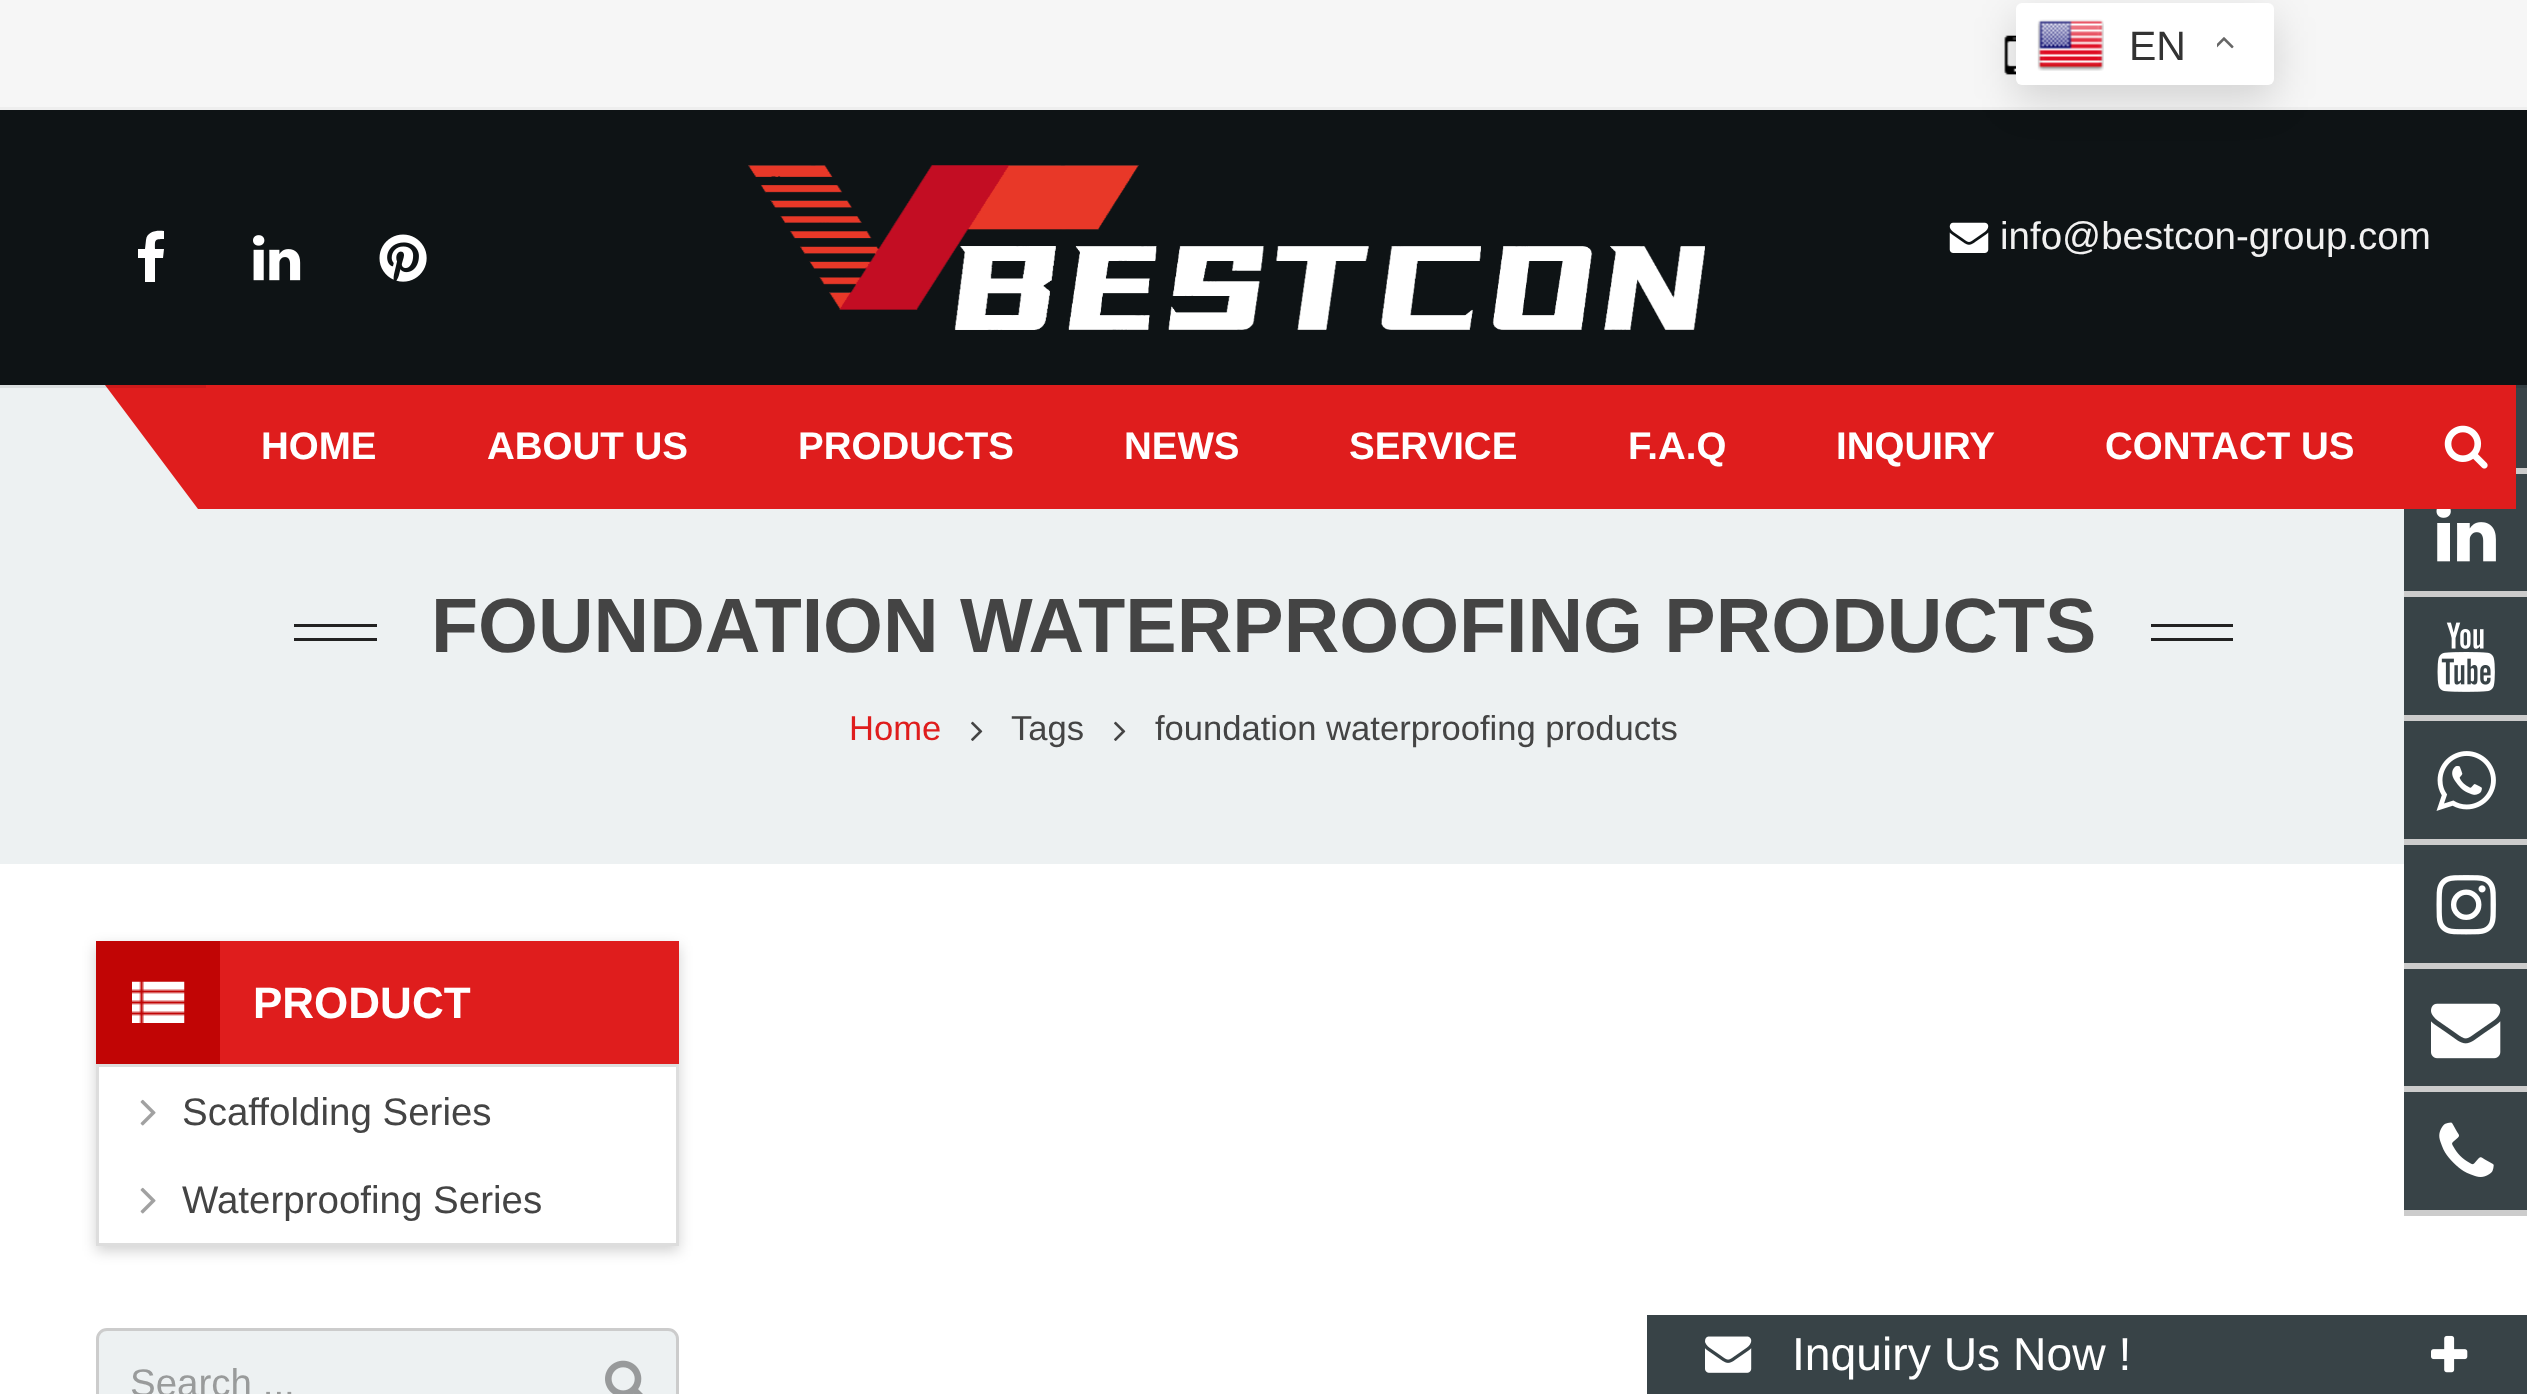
<!DOCTYPE html>
<meta charset="utf-8">
<style>body { margin: 0 } canvas { display: block }</style>
<canvas id="canvas" width="2527" height="1394"></canvas>
<img id="img1" src="img_11.png" hidden>
<img id="img2" src="img_01.png" hidden>
<img id="img3" src="img_02.png" hidden>
<img id="img4" src="img_03.png" hidden>
<img id="img5" src="img_04.png" hidden>
<img id="img6" src="img_05.png" hidden>
<img id="img7" src="img_06.png" hidden>
<img id="img8" src="img_07.png" hidden>
<img id="img9" src="img_08.png" hidden>
<img id="img10" src="img_09.png" hidden>
<img id="img11" src="img_10.png" hidden>
<img id="img12" src="img_12.png" hidden>
<img id="img13" src="img_13.png" hidden>
<img id="img14" src="img_14.png" hidden>
<img id="img15" src="img_15.png" hidden>
<img id="img16" src="img_16.png" hidden>
<img id="img17" src="img_17.png" hidden>
<img id="img18" src="img_18.png" hidden>
<img id="img19" src="img_19.png" hidden>
<img id="img20" src="img_20.png" hidden>
<script>
window.onload = function () {
	const canvas = document.getElementById("canvas");
	const ctx = canvas.getContext("2d");
	ctx.miterLimit = 4;
	ctx.fontKerning = "normal";
	function txt(s, x, y) {
		ctx.fillText(s, x, y);
	}
	function fill(x, y, w, h) {
		ctx.fillRect(x, y, w, h);
	}
	function round(x, y, w, h, r) {
		ctx.beginPath();
		ctx.roundRect(x, y, w, h, r);
		ctx.fill();
	}
	function img(id, x, y, w, h) {
		ctx.drawImage(document.getElementById(id), x, y, w, h);
	}

	ctx.fillStyle = "#FFFFFF";
	fill(0, 0, 2527, 1394);
	ctx.fillStyle = "#F6F6F6";
	fill(0, 0, 2527, 107);
	ctx.fillStyle = "#EEEEEE";
	fill(0, 107, 2527, 3);
	img("img1", 2004, 35, 12, 40);
	ctx.fillStyle = "#0E1315";
	fill(0, 110, 2527, 275);
	ctx.fillStyle = "rgba(0, 0, 0, 0.15)";
	ctx.filter = "blur(20.5px)";
	ctx.beginPath();
	ctx.roundRect(2016, 17, 258, 82, 6);
	ctx.fill();
	ctx.filter = "none";
	ctx.fillStyle = "#FFFFFF";
	round(2016, 3, 258, 82, 6);
	img("img2", 2037, 19, 67, 52);
	img("img3", 2217, 37, 17, 12);
	ctx.fillStyle = "#384347";
	fill(2404, 385, 123, 825);
	ctx.fillStyle = "#CCCCCC";
	fill(2516, 468, 11, 6);
	fill(2404, 591, 123, 6);
	img("img4", 2436, 509, 60, 53);
	fill(2404, 715, 123, 6);
	img("img5", 2437, 622, 58, 70);
	fill(2404, 839, 123, 6);
	img("img6", 2436, 751, 60, 60);
	fill(2404, 963, 123, 6);
	img("img7", 2436, 875, 60, 60);
	fill(2404, 1086, 123, 6);
	img("img8", 2431, 1003, 70, 56);
	fill(2404, 1210, 123, 6);
	img("img9", 2439, 1122, 55, 55);
	ctx.fillStyle = "#384347";
	fill(1647, 1315, 880, 79);
	img("img10", 1705, 1336, 47, 37);
	img("img11", 2431, 1335, 37, 38);
	ctx.fillStyle = "#EDF1F2";
	fill(0, 385, 2404, 479);
	ctx.fillStyle = "#DF1D1D";
	ctx.beginPath();
	ctx.moveTo(105, 385);
	ctx.lineTo(655, 385);
	ctx.lineTo(748, 509);
	ctx.lineTo(198, 509);
	ctx.closePath();
	ctx.fill();
	ctx.fillStyle = "rgba(0, 0, 0, 0.08)";
	fill(0, 385, 2527, 3);
	ctx.fillStyle = "#FFFFFF";
	ctx.beginPath();
	ctx.moveTo(164, 231);
	ctx.lineTo(164, 239);
	ctx.bezierCurveTo(154, 239, 155, 240, 155, 249);
	ctx.lineTo(164, 249);
	ctx.lineTo(163, 258);
	ctx.lineTo(155, 258);
	ctx.lineTo(155, 282);
	ctx.lineTo(145, 282);
	ctx.lineTo(145, 258);
	ctx.lineTo(138, 258);
	ctx.lineTo(138, 249);
	ctx.lineTo(145, 249);
	ctx.lineTo(146, 240);
	ctx.bezierCurveTo(147, 231, 157, 230, 164, 231);
	ctx.closePath();
	ctx.fill();
	img("img12", 253, 235, 48, 46);
	img("img13", 379, 234, 48, 48);
	img("img14", 748, 165, 957, 165);
	img("img15", 1949, 222, 40, 31);
	ctx.fillStyle = "#DF1D1D";
	fill(206, 385, 2310, 124);
	img("img16", 2444, 425, 44, 44);
	ctx.fillStyle = "#222222";
	fill(294, 624, 83, 3);
	fill(294, 638, 83, 3);
	fill(2151, 624, 82, 3);
	fill(2151, 638, 82, 3);
	img("img17", 971, 721, 12, 20);
	img("img17", 1114, 721, 12, 20);
	ctx.save();
	ctx.beginPath();
	ctx.moveTo(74, 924);
	ctx.lineTo(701, 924);
	ctx.lineTo(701, 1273);
	ctx.lineTo(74, 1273);
	ctx.closePath();
	ctx.moveTo(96, 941);
	ctx.lineTo(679, 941);
	ctx.lineTo(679, 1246);
	ctx.lineTo(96, 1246);
	ctx.closePath();
	ctx.clip("evenodd");
	ctx.fillStyle = "rgba(0, 0, 0, 0.18)";
	ctx.filter = "blur(7px)";
	ctx.beginPath();
	ctx.rect(96, 946, 583, 305);
	ctx.fill();
	ctx.filter = "none";
	ctx.restore();
	ctx.fillStyle = "#DF1D1D";
	fill(220, 941, 459, 123);
	ctx.fillStyle = "#C10505";
	fill(96, 941, 124, 123);
	img("img18", 132, 981, 53, 42);
	ctx.strokeStyle = "#DDDDDD";
	ctx.lineWidth = 3;
	ctx.strokeRect(97.5, 1065.5, 580, 179);
	img("img19", 140, 1099, 16, 27);
	img("img19", 140, 1187, 16, 27);
	ctx.fillStyle = "#EDF1F2";
	ctx.beginPath();
	ctx.roundRect(97.5, 1329.5, 580, 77, 9.5);
	ctx.fill();
	ctx.strokeStyle = "#CCCCCC";
	ctx.stroke();
	img("img20", 605, 1360, 38, 34);
	ctx.font = "41px Liberation Sans";
	ctx.fillStyle = "#333333";
	txt("EN", 2129, 60);
	ctx.font = "46.25px Liberation Sans";
	ctx.fillStyle = "#FFFFFF";
	txt("Inquiry Us Now !", 1792, 1370);
	ctx.font = "38.5px Liberation Sans";
	ctx.fillStyle = "#F1F1F1";
	txt("info@bestcon-group.com", 2000, 249);
	ctx.font = "bold 38.5px Liberation Sans";
	ctx.fillStyle = "#FFFFFF";
	txt("HOME", 261, 459);
	txt("ABOUT US", 487, 459);
	txt("PRODUCTS", 798, 459);
	txt("NEWS", 1124, 459);
	txt("SERVICE", 1349, 459);
	txt("F.A.Q", 1628, 459);
	txt("INQUIRY", 1836, 459);
	txt("CONTACT US", 2105, 459);
	ctx.font = "bold 77px Liberation Sans";
	ctx.fillStyle = "#444444";
	txt("FOUNDATION WATERPROOFING PRODUCTS", 431, 652);
	ctx.font = "34.6px Liberation Sans";
	ctx.fillStyle = "#DF1D1D";
	txt("Home", 849, 740);
	ctx.fillStyle = "#444444";
	txt("Tags", 1011, 740);
	txt("foundation waterproofing products", 1155, 740);
	ctx.font = "bold 44px Liberation Sans";
	ctx.fillStyle = "#FFFFFF";
	txt("PRODUCT", 253, 1018);
	ctx.font = "38.5px Liberation Sans";
	ctx.fillStyle = "#444444";
	txt("Scaffolding Series", 182, 1125);
	txt("Waterproofing Series", 182, 1213);
	ctx.fillStyle = "#999B9B";
	txt("Search ...", 130, 1396);
};
</script>
